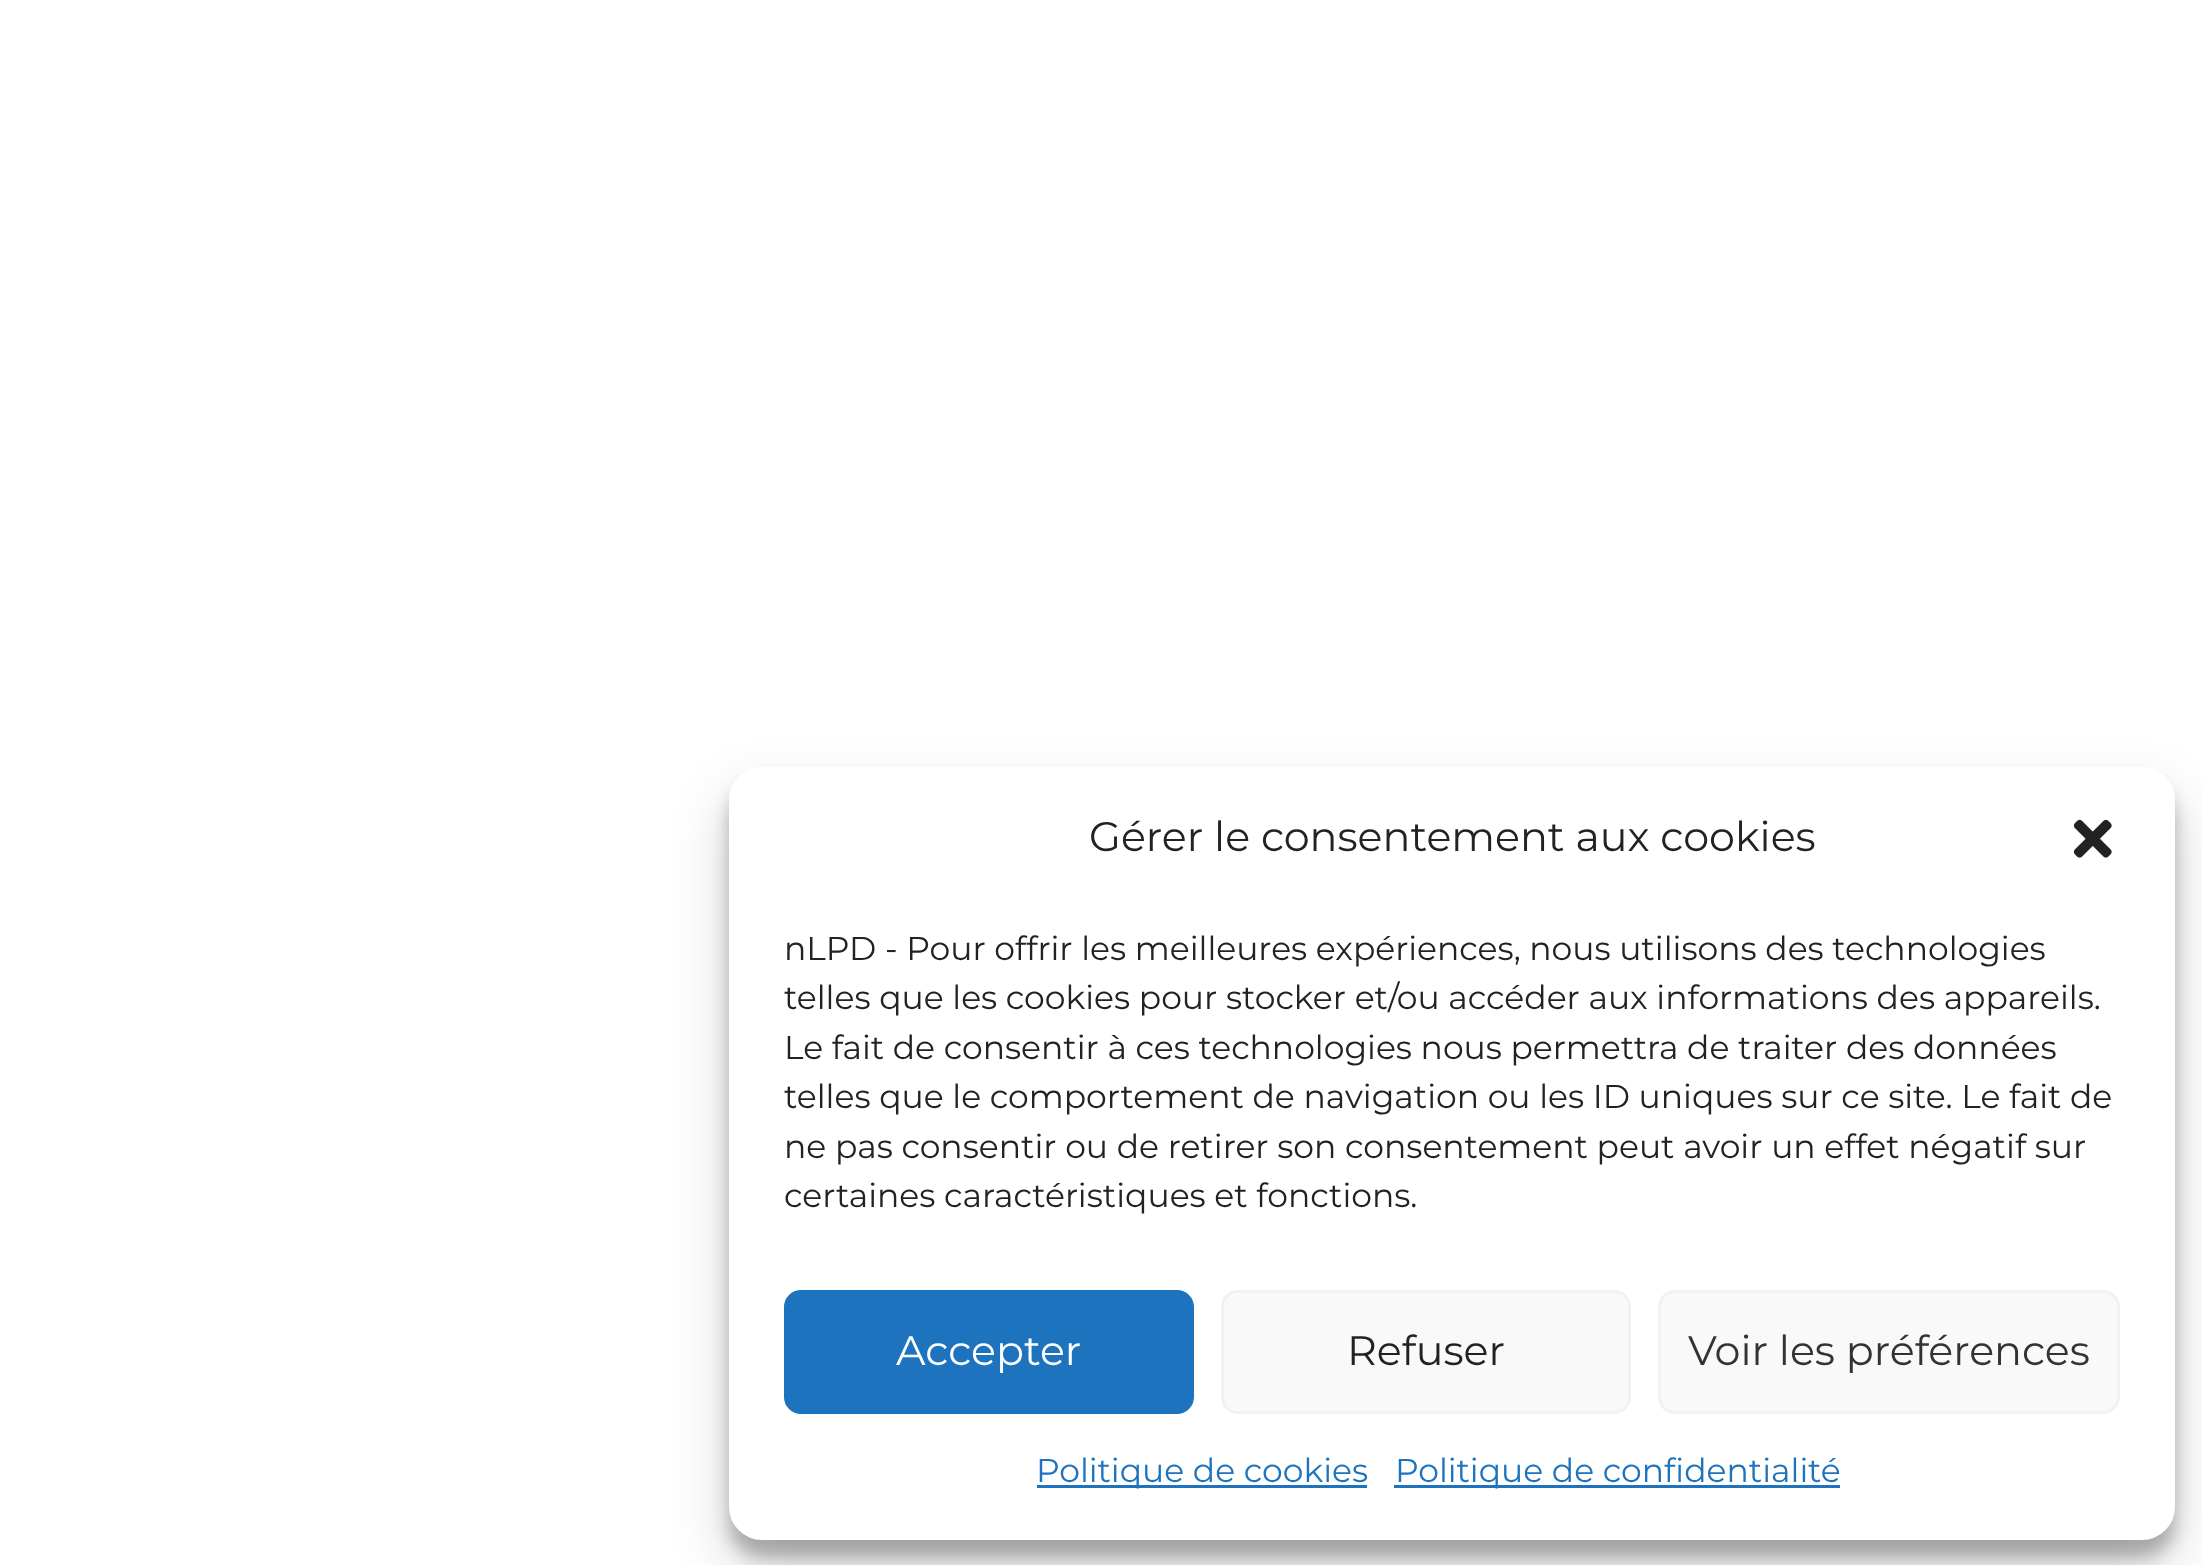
<!DOCTYPE html>
<meta charset="utf-8">
<style>body { margin: 0 } canvas { display: block }</style>
<canvas id="canvas" width="2202" height="1565"></canvas>
<img id="img1" src="img_01.png" hidden>
<script>
window.onload = function () {
	const canvas = document.getElementById("canvas");
	const ctx = canvas.getContext("2d");
	ctx.miterLimit = 4;
	ctx.fontKerning = "normal";
	function txt(s, x, y) {
		ctx.fillText(s, x, y);
	}
	function fill(x, y, w, h) {
		ctx.fillRect(x, y, w, h);
	}
	function round(x, y, w, h, r) {
		ctx.beginPath();
		ctx.roundRect(x, y, w, h, r);
		ctx.fill();
	}
	function img(id, x, y, w, h) {
		ctx.drawImage(document.getElementById(id), x, y, w, h);
	}

	ctx.fillStyle = "#FFFFFF";
	fill(0, 0, 2202, 1565);
	ctx.fillStyle = "rgba(0, 0, 0, 0.23)";
	ctx.filter = "blur(8px)";
	ctx.beginPath();
	ctx.roundRect(729, 784, 1446, 773, 33);
	ctx.fill();
	ctx.filter = "none";
	ctx.fillStyle = "rgba(0, 0, 0, 0.19)";
	ctx.filter = "blur(27.5px)";
	ctx.beginPath();
	ctx.roundRect(729, 795, 1446, 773, 33);
	ctx.fill();
	ctx.filter = "none";
	ctx.fillStyle = "#FFFFFF";
	round(729, 767, 1446, 773, 33);
	img("img1", 2073, 819, 39, 39);
	ctx.fillStyle = "#1E73BE";
	ctx.beginPath();
	ctx.roundRect(785.5, 1291.5, 407, 121, 15.5);
	ctx.fill();
	ctx.strokeStyle = "#1E73BE";
	ctx.lineWidth = 3;
	ctx.stroke();
	ctx.fillStyle = "#F9F9F9";
	ctx.beginPath();
	ctx.roundRect(1222.5, 1291.5, 407, 121, 15.5);
	ctx.fill();
	ctx.strokeStyle = "#F2F2F2";
	ctx.stroke();
	ctx.beginPath();
	ctx.roundRect(1659.5, 1291.5, 459, 121, 15.5);
	ctx.fill();
	ctx.stroke();
	ctx.fillStyle = "#1E73BE";
	fill(1037, 1485, 330, 3);
	fill(1394, 1485, 446, 3);
	ctx.font = "41.25px Montserrat";
	ctx.fillStyle = "#222222";
	txt("Gérer le consentement aux cookies", 1089, 851);
	ctx.font = "33px Montserrat";
	txt("nLPD - Pour offrir les meilleures expériences, nous utilisons des technologies", 784, 960);
	txt("telles que les cookies pour stocker et/ou accéder aux informations des appareils.", 784, 1009);
	txt("Le fait de consentir à ces technologies nous permettra de traiter des données", 784, 1059);
	txt("telles que le comportement de navigation ou les ID uniques sur ce site. Le fait de", 784, 1108);
	txt("ne pas consentir ou de retirer son consentement peut avoir un effet négatif sur", 784, 1158);
	txt("certaines caractéristiques et fonctions.", 784, 1207);
	ctx.font = "41.25px Montserrat";
	ctx.fillStyle = "#FFFFFF";
	txt("Accepter", 896, 1365);
	ctx.fillStyle = "#222222";
	txt("Refuser", 1347, 1365);
	ctx.fillStyle = "#333333";
	txt("Voir les préférences", 1688, 1365);
	ctx.font = "33px Montserrat";
	ctx.fillStyle = "#1E73BE";
	txt("Politique de cookies", 1036, 1482);
	txt("Politique de confidentialité", 1395, 1482);
};
</script>
